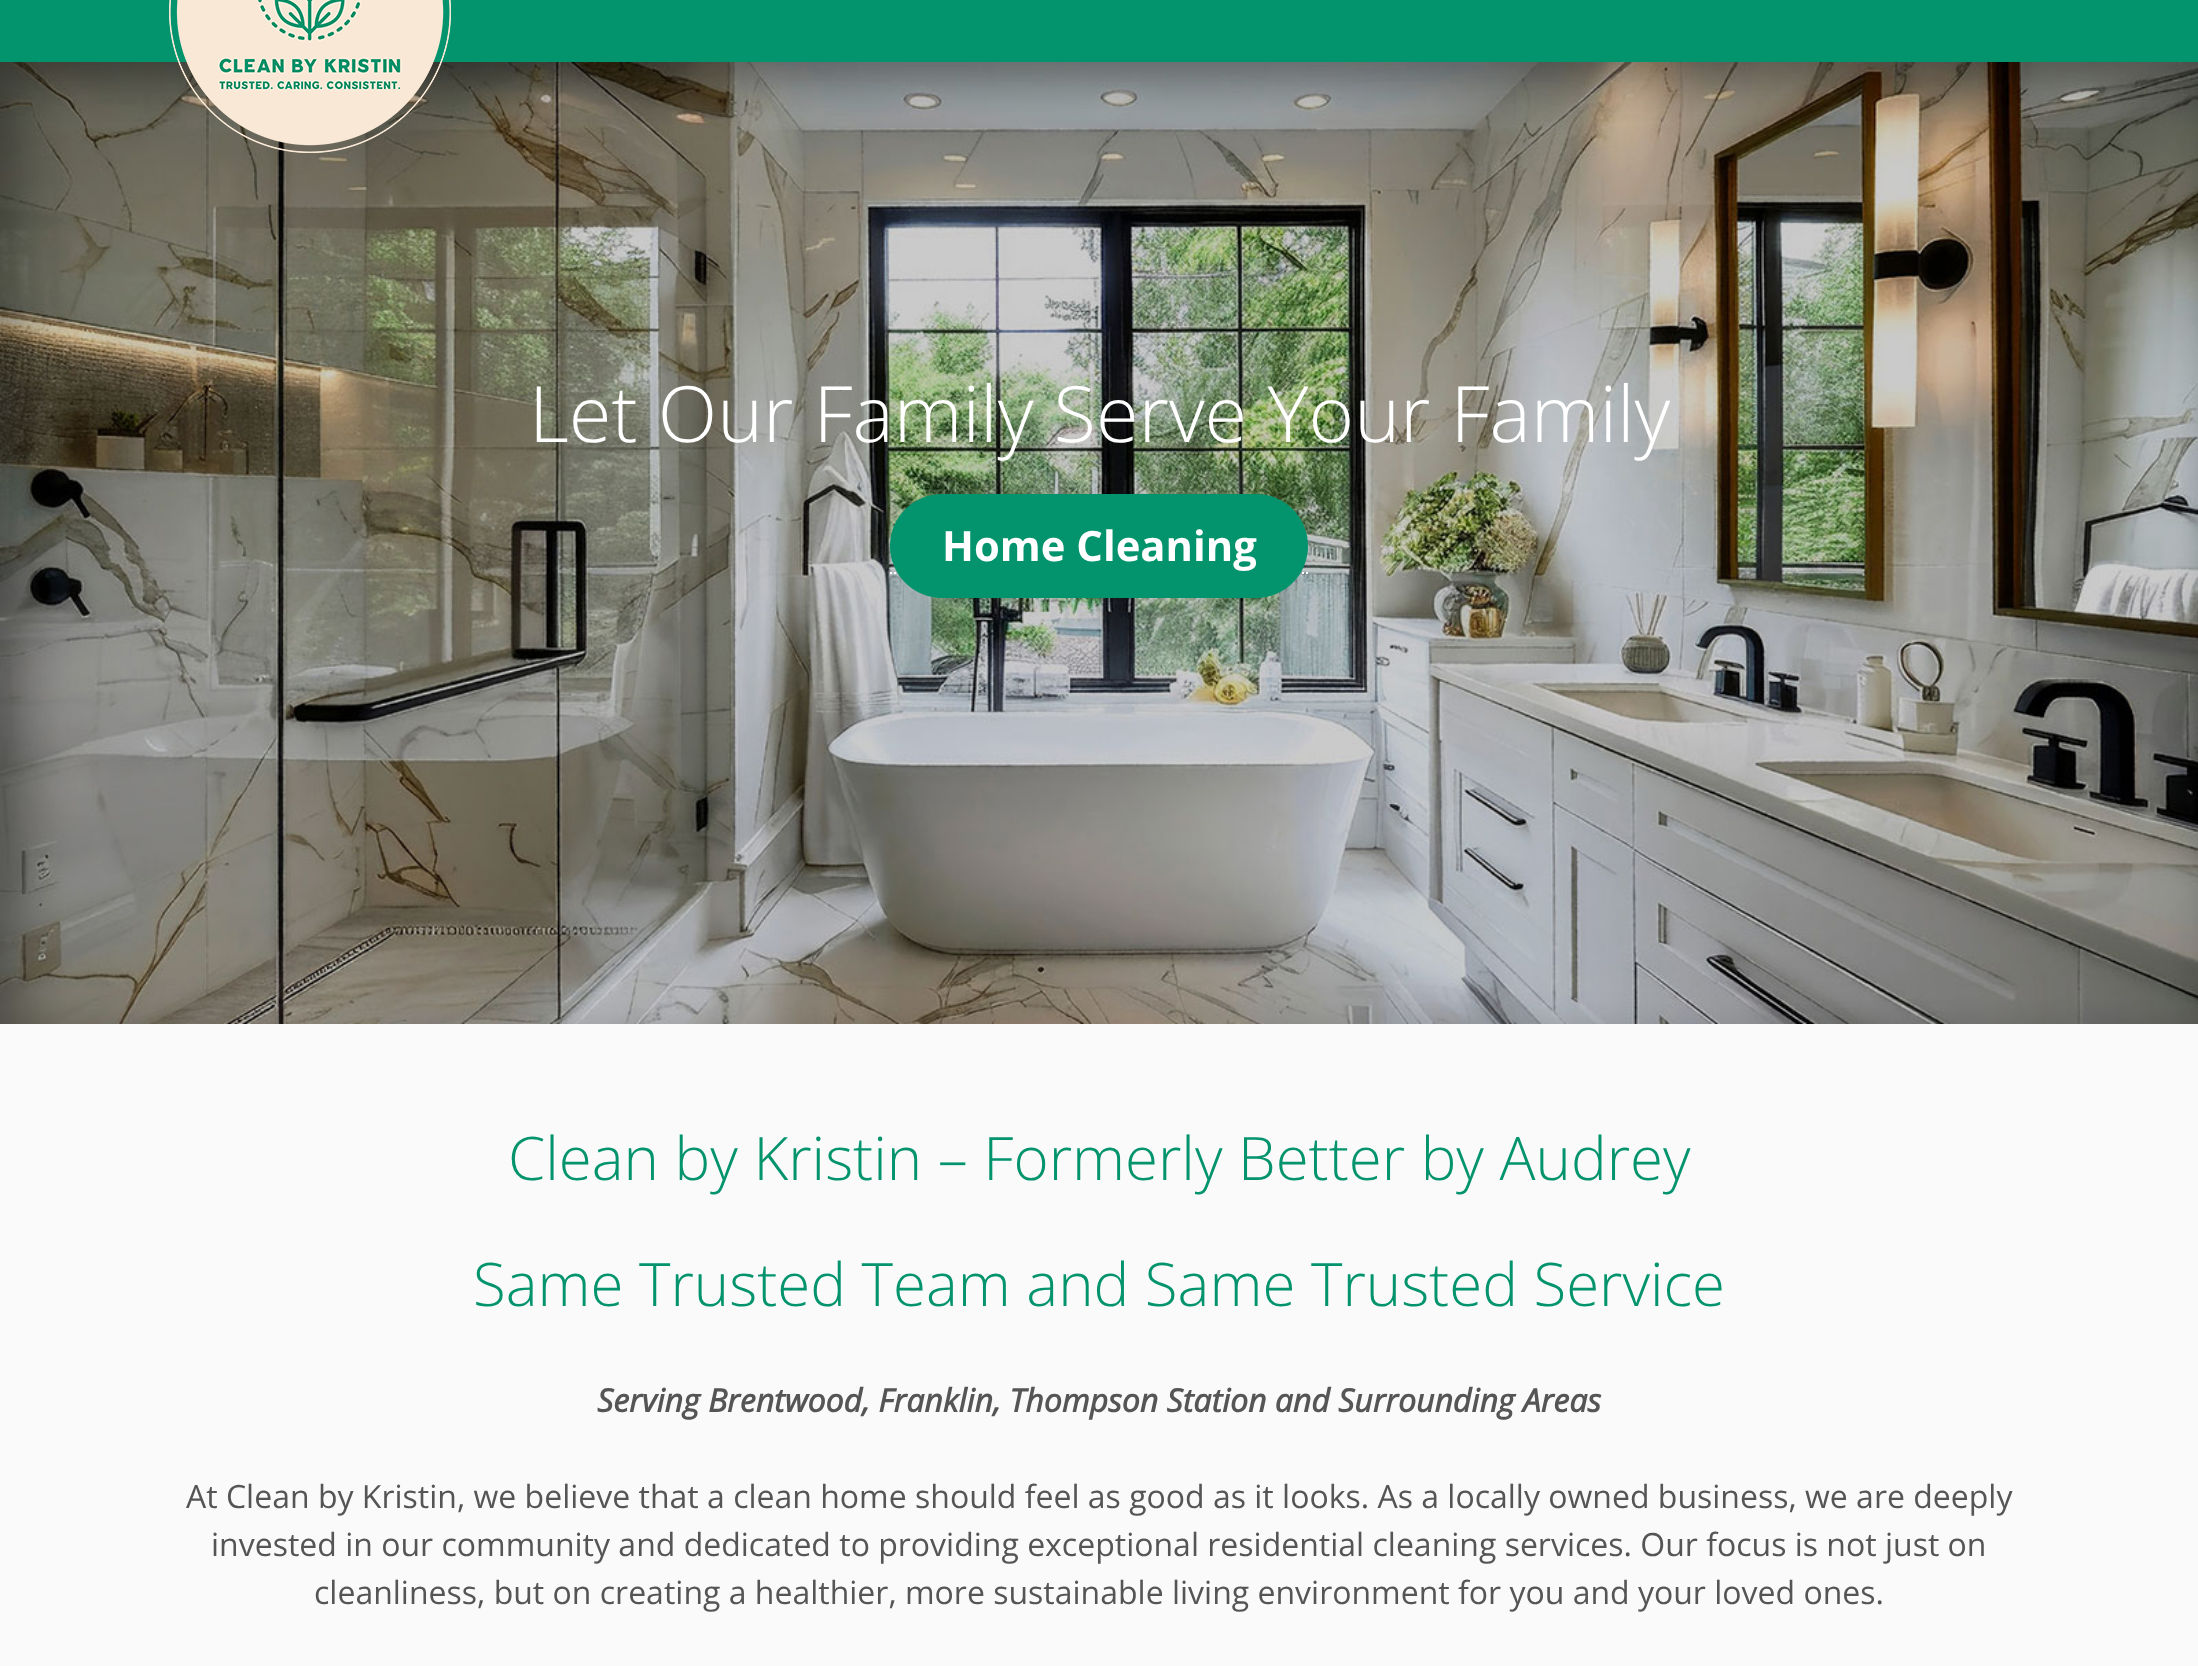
<!DOCTYPE html>
<meta charset="utf-8">
<style>body { margin: 0 } canvas { display: block }</style>
<canvas id="canvas" width="2198" height="1666"></canvas>
<img id="img1" src="img_02.png" hidden>
<img id="img2" src="img_01.png" hidden>
<script>
window.onload = function () {
	const canvas = document.getElementById("canvas");
	const ctx = canvas.getContext("2d");
	ctx.miterLimit = 4;
	ctx.fontKerning = "normal";
	function txt(s, x, y) {
		ctx.fillText(s, x, y);
	}
	function fill(x, y, w, h) {
		ctx.fillRect(x, y, w, h);
	}
	function round(x, y, w, h, r) {
		ctx.beginPath();
		ctx.roundRect(x, y, w, h, r);
		ctx.fill();
	}
	function img(id, x, y, w, h) {
		ctx.drawImage(document.getElementById(id), x, y, w, h);
	}

	ctx.fillStyle = "#FAFAFA";
	fill(0, 0, 2198, 1666);
	img("img1", 0, 62, 2198, 962);
	ctx.fillStyle = "rgba(0, 0, 0, 0.15)";
	ctx.filter = "blur(30px)";
	ctx.beginPath();
	ctx.rect(-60, -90, 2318, 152);
	ctx.fill();
	ctx.filter = "none";
	ctx.fillStyle = "#04946D";
	fill(0, 0, 2198, 62);
	img("img2", 169, 0, 282, 153);
	ctx.beginPath();
	ctx.moveTo(890, 573);
	ctx.lineTo(1308, 573);
	ctx.strokeStyle = "#FFFFFF";
	ctx.lineWidth = 2;
	ctx.setLineDash([2, 2]);
	ctx.stroke();
	round(890, 494, 418, 104, 52);
	ctx.font = "300 77.75px Open Sans";
	ctx.fillStyle = "#FFFFFF";
	txt("Let Our Family Serve Your Family", 529, 442);
	ctx.font = "bold 41.75px Open Sans";
	txt("Home Cleaning", 942, 561);
	ctx.font = "300 60px Open Sans";
	ctx.fillStyle = "#04946D";
	txt("Clean by Kristin – Formerly Better by Audrey", 508, 1180);
	txt("Same Trusted Team and Same Trusted Service", 473, 1306);
	ctx.font = "italic bold 32px Open Sans";
	ctx.fillStyle = "#555555";
	txt("Serving Brentwood, Franklin, Thompson Station and Surrounding Areas", 597, 1412);
	ctx.font = "32px Open Sans";
	txt("At Clean by Kristin, we believe that a clean home should feel as good as it looks. As a locally owned business, we are deeply", 186, 1508);
	txt("invested in our community and dedicated to providing exceptional residential cleaning services. Our focus is not just on", 211, 1556);
	txt("cleanliness, but on creating a healthier, more sustainable living environment for you and your loved ones.", 314, 1604);
};
</script>
